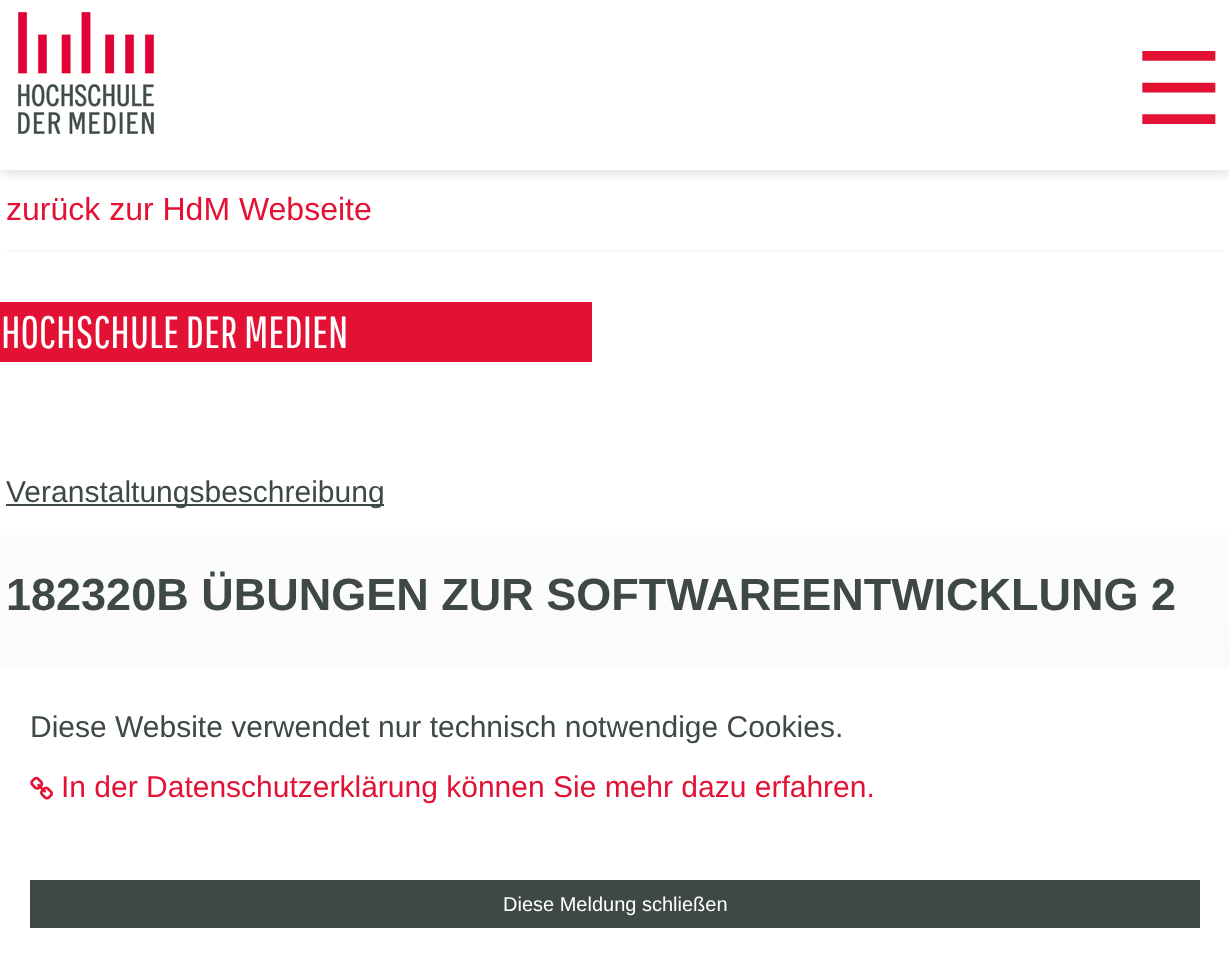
<!DOCTYPE html>
<meta charset="utf-8">
<style>body { margin: 0 } canvas { display: block }</style>
<canvas id="canvas" width="1229" height="957"></canvas>
<img id="img1" src="img_01.png" hidden>
<img id="img2" src="img_02.png" hidden>
<script>
window.onload = function () {
	const canvas = document.getElementById("canvas");
	const ctx = canvas.getContext("2d");
	ctx.miterLimit = 4;
	ctx.fontKerning = "normal";
	function txt(s, x, y) {
		ctx.fillText(s, x, y);
	}
	function fill(x, y, w, h) {
		ctx.fillRect(x, y, w, h);
	}
	function img(id, x, y, w, h) {
		ctx.drawImage(document.getElementById(id), x, y, w, h);
	}
	let gradient;

	ctx.fillStyle = "#FFFFFF";
	fill(0, 0, 1229, 957);
	gradient = ctx.createLinearGradient(615, 0, 615, 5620);
	gradient.addColorStop(0.07, "#FFFFFF");
	gradient.addColorStop(0.16, "#F6F6F6");
	ctx.fillStyle = gradient;
	fill(0, 534, 1229, 134);
	ctx.save();
	ctx.beginPath();
	ctx.rect(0, 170, 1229, 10);
	ctx.clip();
	ctx.fillStyle = "rgba(0, 0, 0, 0.2)";
	ctx.filter = "blur(7.5px)";
	ctx.beginPath();
	ctx.rect(0, 0, 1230, 170);
	ctx.fill();
	ctx.filter = "none";
	ctx.restore();
	img("img1", 15, 12, 142, 122);
	ctx.fillStyle = "#F6F6F6";
	fill(6, 250, 1218, 2);
	ctx.fillStyle = "#E31134";
	fill(0, 302, 592, 60);
	ctx.fillStyle = "#3E4847";
	fill(6, 504, 378, 2);
	img("img2", 30, 776, 23, 24);
	fill(30, 880, 1170, 48);
	ctx.font = "100px DejaVu Sans";
	ctx.fillStyle = "#E31134";
	txt("☰", 1134, 124);
	ctx.font = "32px Liberation Sans";
	txt("zurück zur HdM Webseite", 6, 220);
	ctx.font = "45px Pathway Gothic One";
	ctx.fillStyle = "#FFFFFF";
	txt("HOCHSCHULE DER MEDIEN", 1, 348);
	ctx.font = "30px Liberation Sans";
	ctx.fillStyle = "#3E4847";
	txt("Veranstaltungsbeschreibung", 6, 502);
	ctx.font = "bold 45px Liberation Sans";
	txt("182320B ÜBUNGEN ZUR SOFTWAREENTWICKLUNG 2", 6, 610);
	ctx.font = "30px Liberation Sans";
	txt("Diese Website verwendet nur technisch notwendige Cookies.", 30, 737);
	ctx.fillStyle = "#E31134";
	txt("In der Datenschutzerklärung können Sie mehr dazu erfahren.", 61, 797);
	ctx.font = "20px Liberation Sans";
	ctx.fillStyle = "#FFFFFF";
	txt("Diese Meldung schließen", 503, 911);
};
</script>
